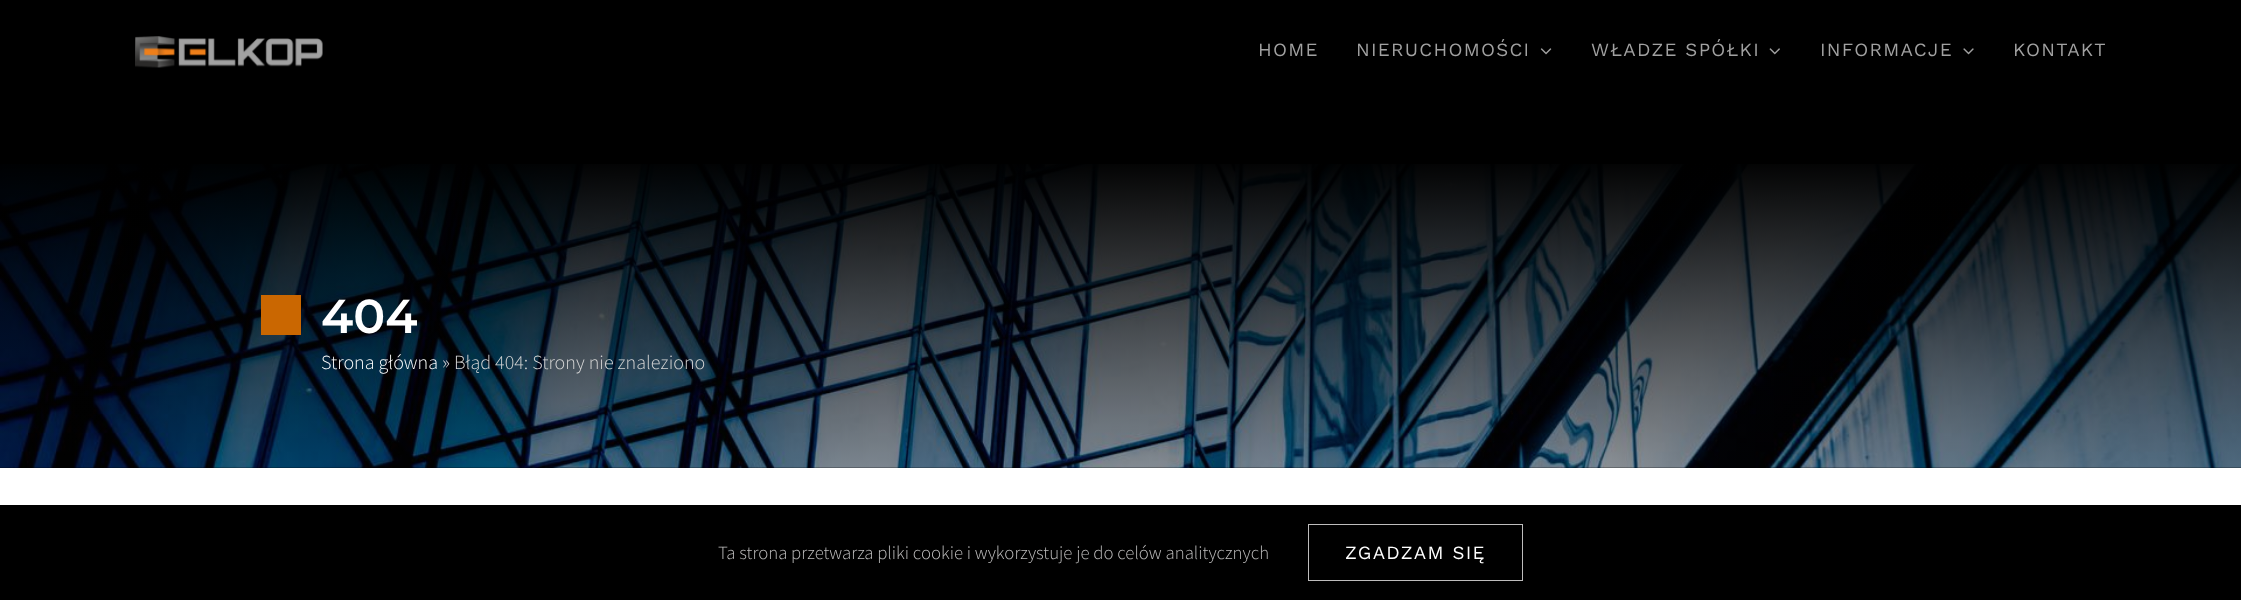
<!DOCTYPE html>
<meta charset="utf-8">
<style>body { margin: 0 } canvas { display: block }</style>
<canvas id="canvas" width="2241" height="600"></canvas>
<img id="img1" src="img_01.png" hidden>
<img id="img2" src="img_02.png" hidden>
<img id="img3" src="img_03.png" hidden>
<img id="img4" src="img_04.png" hidden>
<img id="img5" src="img_05.png" hidden>
<script>
window.onload = function () {
	const canvas = document.getElementById("canvas");
	const ctx = canvas.getContext("2d");
	ctx.miterLimit = 4;
	ctx.fontKerning = "normal";
	function txt(s, x, y) {
		ctx.fillText(s, x, y);
	}
	function fill(x, y, w, h) {
		ctx.fillRect(x, y, w, h);
	}
	function img(id, x, y, w, h) {
		ctx.drawImage(document.getElementById(id), x, y, w, h);
	}

	ctx.fillStyle = "#FFFFFF";
	fill(0, 0, 2241, 600);
	ctx.fillStyle = "#000000";
	fill(0, 0, 2241, 468);
	img("img1", 135, 36, 188, 32);
	img("img2", 1540, 48, 12, 7);
	img("img3", 1769, 48, 11, 7);
	img("img4", 1963, 48, 11, 7);
	img("img5", 0, 164, 2241, 304);
	ctx.fillStyle = "#CA6701";
	fill(261, 295, 40, 40);
	ctx.fillStyle = "#000000";
	fill(0, 505, 2241, 95);
	ctx.strokeStyle = "#BEBDBD";
	ctx.strokeRect(1308.5, 524.5, 214, 56);
	ctx.letterSpacing = "1.25px";
	ctx.font = "18.75px Work Sans";
	ctx.fillStyle = "#A1A1A1";
	txt("HOME", 1258, 56);
	txt("NIERUCHOMOŚCI", 1356, 56);
	txt("WŁADZE SPÓŁKI", 1591, 56);
	txt("INFORMACJE", 1820, 56);
	txt("KONTAKT", 2013, 56);
	ctx.letterSpacing = "0px";
	ctx.font = "600 47.5px Montserrat";
	ctx.fillStyle = "#FFFFFF";
	txt("404", 321, 333);
	ctx.font = "300 20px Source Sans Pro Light";
	txt("Strona główna", 321, 369);
	ctx.fillStyle = "#D6D6D6";
	txt("» Błąd 404: Strony nie znaleziono", 442, 369);
	ctx.font = "300 18.75px Source Sans Pro Light";
	ctx.fillStyle = "#BEBDBD";
	txt("Ta strona przetwarza pliki cookie i wykorzystuje je do celów analitycznych", 718, 559);
	ctx.letterSpacing = "1.25px";
	ctx.font = "18.75px Work Sans";
	ctx.fillStyle = "#FFFFFF";
	txt("ZGADZAM SIĘ", 1345, 559);
};
</script>
